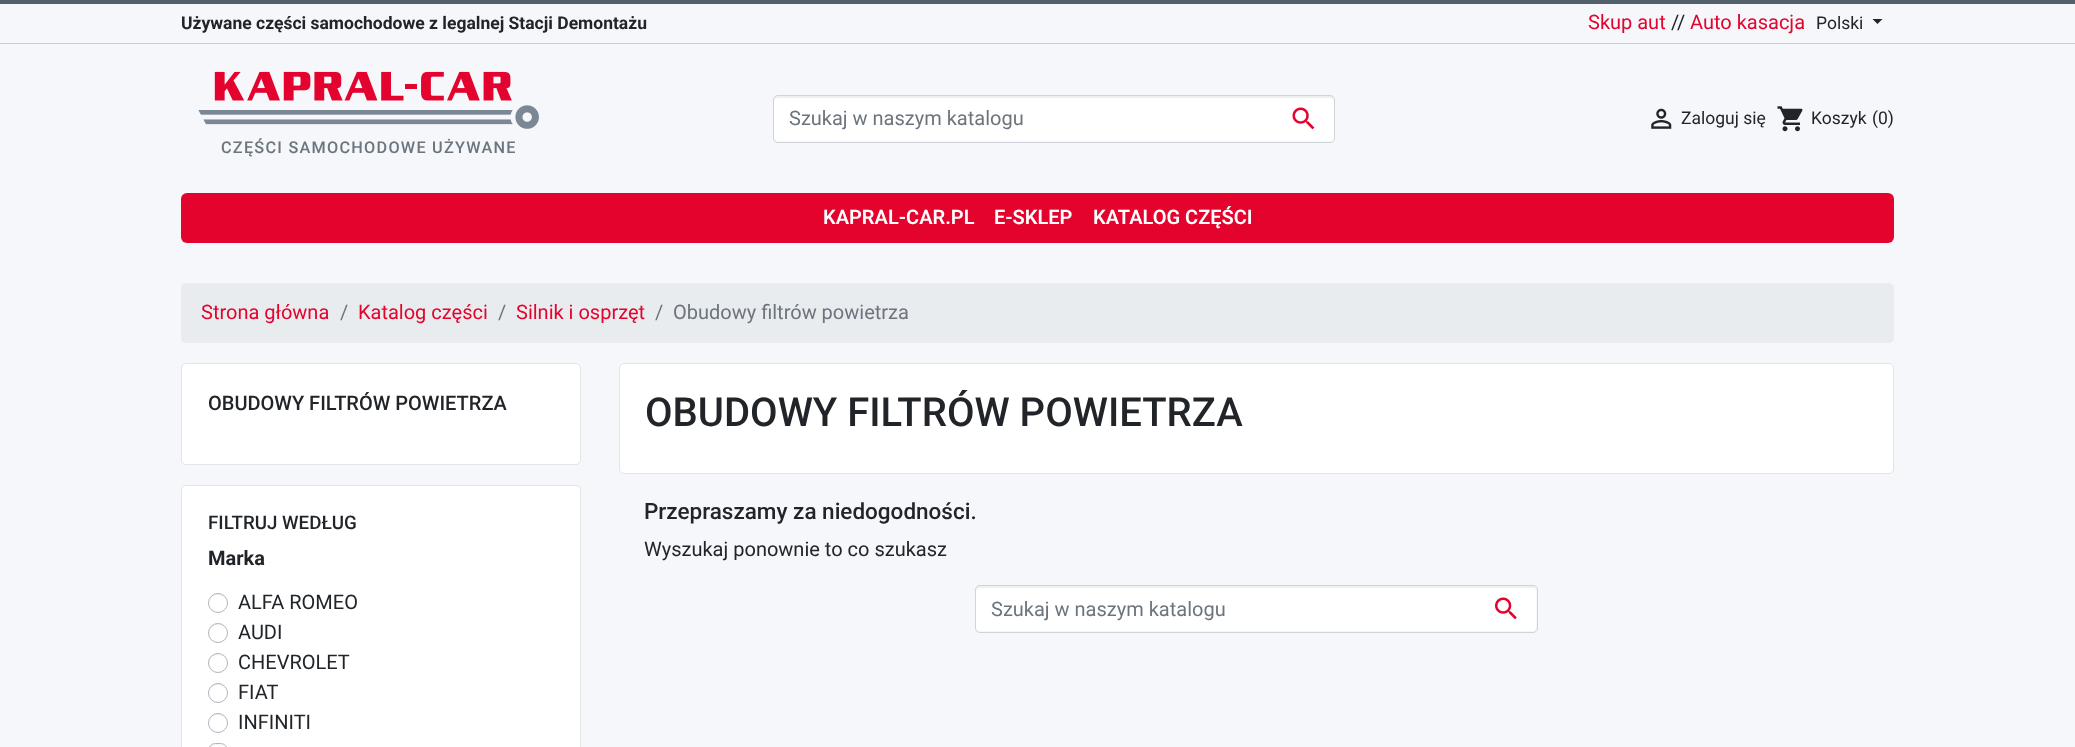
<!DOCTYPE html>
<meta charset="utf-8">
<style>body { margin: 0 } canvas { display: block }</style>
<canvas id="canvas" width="2075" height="747"></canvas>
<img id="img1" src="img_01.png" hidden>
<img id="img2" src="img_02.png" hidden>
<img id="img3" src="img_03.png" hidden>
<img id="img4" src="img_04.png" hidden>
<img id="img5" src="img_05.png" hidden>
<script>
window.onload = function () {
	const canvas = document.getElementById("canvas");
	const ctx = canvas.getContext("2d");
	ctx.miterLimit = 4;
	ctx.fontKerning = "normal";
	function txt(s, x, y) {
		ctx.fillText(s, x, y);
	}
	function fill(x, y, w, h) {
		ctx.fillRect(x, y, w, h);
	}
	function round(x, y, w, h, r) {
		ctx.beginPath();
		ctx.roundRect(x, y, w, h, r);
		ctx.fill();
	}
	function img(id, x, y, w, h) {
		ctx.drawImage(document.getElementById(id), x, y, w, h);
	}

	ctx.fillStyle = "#F5F7FA";
	fill(0, 0, 2075, 747);
	ctx.fillStyle = "#52606D";
	fill(0, 0, 2075, 4);
	ctx.fillStyle = "#CCCCCC";
	fill(0, 43, 2075, 1);
	ctx.fillStyle = "#212529";
	ctx.beginPath();
	ctx.moveTo(1872.5, 19);
	ctx.lineTo(1882.5, 19);
	ctx.lineTo(1877.5, 24);
	ctx.closePath();
	ctx.fill();
	ctx.fillStyle = "#FFFFFF";
	round(774, 96, 560, 45, 4);
	ctx.fillStyle = "rgba(21, 30, 38, 0.07)";
	ctx.beginPath();
	ctx.moveTo(778, 98);
	ctx.lineTo(1330, 98);
	ctx.bezierCurveTo(1332, 98, 1334, 99, 1334, 101);
	ctx.bezierCurveTo(1334, 98, 1333, 96, 1330, 96);
	ctx.lineTo(778, 96);
	ctx.bezierCurveTo(775, 96, 774, 98, 774, 101);
	ctx.bezierCurveTo(774, 99, 775, 98, 778, 98);
	ctx.closePath();
	ctx.fill();
	ctx.beginPath();
	ctx.roundRect(773.5, 95.5, 561, 47, 4.5);
	ctx.strokeStyle = "#CED4DA";
	ctx.stroke();
	img("img1", 1292, 107, 23, 23);
	img("img2", 1651, 108, 21, 21);
	img("img3", 1777, 106, 26, 26);
	img("img4", 198, 71, 341, 58);
	ctx.fillStyle = "#E3032D";
	round(181, 193, 1713, 50, 6);
	ctx.fillStyle = "#E9ECEF";
	round(181, 283, 1713, 60, 5);
	ctx.fillStyle = "#FFFFFF";
	round(181, 363, 400, 102, 5);
	ctx.beginPath();
	ctx.roundRect(181.5, 363.5, 399, 101, 4.5);
	ctx.strokeStyle = "rgba(21, 30, 38, 0.12)";
	ctx.stroke();
	round(181, 485, 400, 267, 5);
	ctx.beginPath();
	ctx.roundRect(181.5, 485.5, 399, 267, 4.5);
	ctx.stroke();
	ctx.fillStyle = "#EDEEEF";
	ctx.beginPath();
	ctx.moveTo(218, 595);
	ctx.bezierCurveTo(222, 595, 224.5, 597.5, 225.5, 600.5);
	ctx.bezierCurveTo(223, 590.5, 208.5, 593, 209, 603);
	ctx.bezierCurveTo(209, 599, 212, 595, 218, 595);
	ctx.closePath();
	ctx.fill();
	ctx.beginPath();
	ctx.arc(218, 603, 9.5, 0, Math.PI * 2);
	ctx.strokeStyle = "#ADB5BD";
	ctx.stroke();
	ctx.beginPath();
	ctx.moveTo(218, 625);
	ctx.bezierCurveTo(222, 625, 224.5, 627.5, 225.5, 630.5);
	ctx.bezierCurveTo(223, 620.5, 208.5, 623, 209, 633);
	ctx.bezierCurveTo(209, 629, 212, 625, 218, 625);
	ctx.closePath();
	ctx.fill();
	ctx.beginPath();
	ctx.arc(218, 633, 9.5, 0, Math.PI * 2);
	ctx.stroke();
	ctx.beginPath();
	ctx.moveTo(218, 655);
	ctx.bezierCurveTo(222, 655, 224.5, 657.5, 225.5, 660.5);
	ctx.bezierCurveTo(223, 650.5, 208.5, 653, 209, 663);
	ctx.bezierCurveTo(209, 659, 212, 655, 218, 655);
	ctx.closePath();
	ctx.fill();
	ctx.beginPath();
	ctx.arc(218, 663, 9.5, 0, Math.PI * 2);
	ctx.stroke();
	ctx.beginPath();
	ctx.moveTo(218, 685);
	ctx.bezierCurveTo(222, 685, 224.5, 687.5, 225.5, 690.5);
	ctx.bezierCurveTo(223, 680.5, 208.5, 683, 209, 693);
	ctx.bezierCurveTo(209, 689, 212, 685, 218, 685);
	ctx.closePath();
	ctx.fill();
	ctx.beginPath();
	ctx.arc(218, 693, 9.5, 0, Math.PI * 2);
	ctx.stroke();
	ctx.beginPath();
	ctx.moveTo(218, 715);
	ctx.bezierCurveTo(222, 715, 224.5, 717.5, 225.5, 720.5);
	ctx.bezierCurveTo(223, 710.5, 208.5, 713, 209, 723);
	ctx.bezierCurveTo(209, 719, 212, 715, 218, 715);
	ctx.closePath();
	ctx.fill();
	ctx.beginPath();
	ctx.arc(218, 723, 9.5, 0, Math.PI * 2);
	ctx.stroke();
	ctx.beginPath();
	ctx.moveTo(218, 745);
	ctx.bezierCurveTo(222, 745, 224.5, 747.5, 225.5, 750.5);
	ctx.bezierCurveTo(223, 740.5, 208.5, 743, 209, 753);
	ctx.bezierCurveTo(209, 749, 212, 745, 218, 745);
	ctx.closePath();
	ctx.fill();
	ctx.beginPath();
	ctx.roundRect(208.5, 743.5, 19, 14, 9.5);
	ctx.stroke();
	ctx.fillStyle = "#FFFFFF";
	round(619, 363, 1275, 111, 5);
	ctx.beginPath();
	ctx.roundRect(619.5, 363.5, 1274, 110, 4.5);
	ctx.strokeStyle = "rgba(21, 30, 38, 0.12)";
	ctx.stroke();
	round(976, 586, 560, 45, 4);
	ctx.fillStyle = "rgba(21, 30, 38, 0.07)";
	ctx.beginPath();
	ctx.moveTo(980, 588);
	ctx.lineTo(1532, 588);
	ctx.bezierCurveTo(1535, 588, 1536, 589, 1536, 591);
	ctx.bezierCurveTo(1536, 588, 1535, 586, 1532, 586);
	ctx.lineTo(980, 586);
	ctx.bezierCurveTo(977, 586, 976, 588, 976, 591);
	ctx.bezierCurveTo(976, 589, 978, 588, 980, 588);
	ctx.closePath();
	ctx.fill();
	ctx.beginPath();
	ctx.roundRect(975.5, 585.5, 562, 47, 4.5);
	ctx.strokeStyle = "#CED4DA";
	ctx.stroke();
	img("img5", 1495, 597, 22, 23);
	ctx.font = "bold 17.5px Roboto";
	ctx.fillStyle = "#212529";
	txt("Używane części samochodowe z legalnej Stacji Demontażu", 181, 29);
	ctx.font = "20px Roboto";
	ctx.fillStyle = "#E3032D";
	txt("Skup aut", 1588, 29);
	ctx.fillStyle = "#212529";
	txt("//", 1671, 29);
	ctx.fillStyle = "#E3032D";
	txt("Auto kasacja", 1690, 29);
	ctx.font = "17.5px Roboto";
	ctx.fillStyle = "#212529";
	txt("Polski", 1816, 29);
	ctx.font = "20px Roboto";
	ctx.fillStyle = "#6C757D";
	txt("Szukaj w naszym katalogu", 789, 125);
	ctx.font = "17.5px Roboto";
	ctx.fillStyle = "#212529";
	txt("Zaloguj się", 1681, 124);
	txt("Koszyk", 1811, 124);
	txt("(0)", 1872, 124);
	ctx.letterSpacing = "1.25px";
	ctx.font = "500 16.25px Roboto";
	ctx.fillStyle = "#6C757D";
	txt("CZĘŚCI SAMOCHODOWE UŻYWANE", 221, 153);
	ctx.letterSpacing = "0px";
	ctx.font = "600 20px Roboto";
	ctx.fillStyle = "#FFFFFF";
	txt("KAPRAL-CAR.PL", 823, 224);
	txt("E-SKLEP", 994, 224);
	txt("KATALOG CZĘŚCI", 1093, 224);
	ctx.font = "20px Roboto";
	ctx.fillStyle = "#E3032D";
	txt("Strona główna", 201, 319);
	ctx.fillStyle = "#6C757D";
	txt("/", 340, 319);
	ctx.fillStyle = "#E3032D";
	txt("Katalog części", 358, 319);
	ctx.fillStyle = "#6C757D";
	txt("/", 498, 319);
	ctx.fillStyle = "#E3032D";
	txt("Silnik i osprzęt", 516, 319);
	ctx.fillStyle = "#6C757D";
	txt("/", 655, 319);
	txt("Obudowy filtrów powietrza", 673, 319);
	ctx.font = "500 20px Roboto";
	ctx.fillStyle = "#212529";
	txt("OBUDOWY FILTRÓW POWIETRZA", 208, 410);
	ctx.font = "500 18.75px Roboto";
	txt("FILTRUJ WEDŁUG", 208, 529);
	ctx.font = "bold 20px Roboto";
	txt("Marka", 208, 565);
	ctx.font = "20px Roboto";
	txt("ALFA ROMEO", 238, 609);
	txt("AUDI", 238, 639);
	txt("CHEVROLET", 238, 669);
	txt("FIAT", 238, 699);
	txt("INFINITI", 238, 729);
	ctx.font = "500 40px Roboto";
	txt("OBUDOWY FILTRÓW POWIETRZA", 645, 426);
	ctx.font = "500 22.5px Roboto";
	txt("Przepraszamy za niedogodności.", 644, 519);
	ctx.font = "20px Roboto";
	txt("Wyszukaj ponownie to co szukasz", 644, 556);
	ctx.fillStyle = "#6C757D";
	txt("Szukaj w naszym katalogu", 991, 616);
};
</script>
